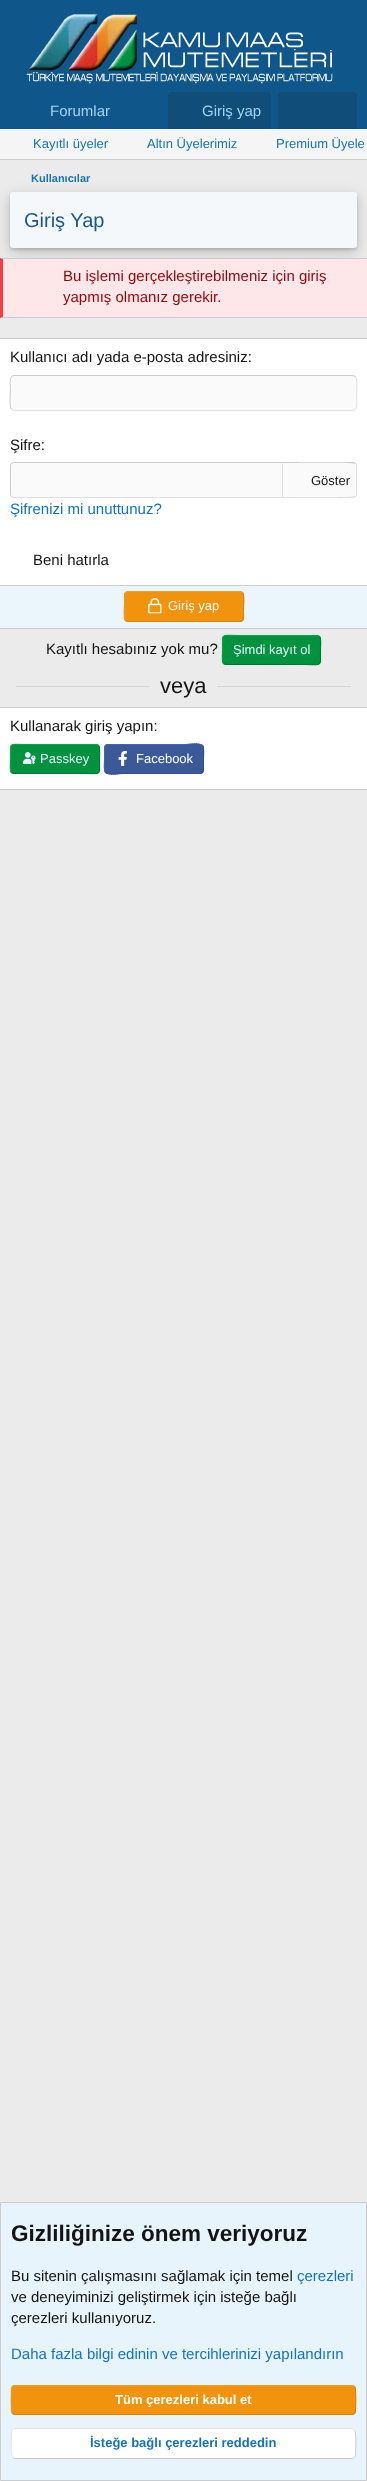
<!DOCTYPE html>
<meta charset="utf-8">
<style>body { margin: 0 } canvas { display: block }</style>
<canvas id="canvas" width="367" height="2481"></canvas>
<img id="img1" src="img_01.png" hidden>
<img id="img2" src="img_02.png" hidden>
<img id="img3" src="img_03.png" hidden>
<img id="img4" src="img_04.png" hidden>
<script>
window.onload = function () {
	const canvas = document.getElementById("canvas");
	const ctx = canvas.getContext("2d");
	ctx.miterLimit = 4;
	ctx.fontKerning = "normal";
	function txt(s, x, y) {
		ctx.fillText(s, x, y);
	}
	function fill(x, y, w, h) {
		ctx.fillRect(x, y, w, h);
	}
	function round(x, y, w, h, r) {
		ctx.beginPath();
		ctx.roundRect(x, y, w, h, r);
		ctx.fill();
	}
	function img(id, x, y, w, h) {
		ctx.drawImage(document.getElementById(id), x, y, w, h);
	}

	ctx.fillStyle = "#EBEBEB";
	fill(0, 0, 367, 2481);
	ctx.fillStyle = "#0F578A";
	fill(0, 0, 367, 129);
	img("img1", 26, 14, 307, 70);
	ctx.fillStyle = "#104D78";
	ctx.beginPath();
	ctx.roundRect(168, 92, 103, 37, [4, 4, 0, 0]);
	ctx.fill();
	ctx.beginPath();
	ctx.roundRect(278, 92, 79, 37, [4, 4, 0, 0]);
	ctx.fill();
	ctx.fillStyle = "#F5F5F5";
	fill(0, 129, 367, 30);
	ctx.fillStyle = "#CCCCCC";
	fill(0, 159, 367, 1);
	ctx.fillStyle = "rgba(0, 0, 0, 0.2)";
	ctx.filter = "blur(7px)";
	ctx.beginPath();
	ctx.roundRect(10, 196, 347, 56, 3);
	ctx.fill();
	ctx.filter = "none";
	ctx.fillStyle = "rgba(0, 0, 0, 0.12)";
	ctx.filter = "blur(1px)";
	ctx.beginPath();
	ctx.roundRect(10, 194, 347, 56, 3);
	ctx.fill();
	ctx.filter = "none";
	ctx.fillStyle = "#F5F8FA";
	round(10, 192, 347, 56, 3);
	ctx.fillStyle = "#F6F9FA";
	ctx.beginPath();
	ctx.moveTo(13, 193);
	ctx.lineTo(354, 193);
	ctx.bezierCurveTo(356, 193, 357, 194, 357, 196);
	ctx.bezierCurveTo(357, 194, 356, 192, 354, 192);
	ctx.lineTo(13, 192);
	ctx.lineTo(11, 193);
	ctx.lineTo(10, 196);
	ctx.bezierCurveTo(10, 194, 11, 193, 13, 193);
	ctx.closePath();
	ctx.fill();
	ctx.fillStyle = "#FEE7E8";
	fill(0, 258, 367, 60);
	ctx.fillStyle = "#CCCCCC";
	ctx.beginPath();
	ctx.moveTo(0, 258);
	ctx.lineTo(367, 258);
	ctx.lineTo(367, 259);
	ctx.lineTo(3, 259);
	ctx.closePath();
	ctx.fill();
	ctx.beginPath();
	ctx.moveTo(367, 318);
	ctx.lineTo(0, 318);
	ctx.lineTo(3, 317);
	ctx.lineTo(367, 317);
	ctx.closePath();
	ctx.fill();
	ctx.fillStyle = "#F53D43";
	ctx.beginPath();
	ctx.moveTo(0, 318);
	ctx.lineTo(0, 258);
	ctx.lineTo(3, 259);
	ctx.lineTo(3, 317);
	ctx.closePath();
	ctx.fill();
	ctx.fillStyle = "#FFFFFF";
	fill(0, 339, 367, 246);
	ctx.fillStyle = "#CCCCCC";
	fill(0, 338, 367, 1);
	fill(0, 628, 367, 1);
	ctx.fillStyle = "#FAFAFA";
	round(10, 375, 347, 36, 4);
	ctx.beginPath();
	ctx.moveTo(355.5, 376.5);
	ctx.bezierCurveTo(358, 379, 356.5, 394, 356.5, 397.5);
	ctx.bezierCurveTo(356.5, 400, 358.5, 410.5, 353, 410.5);
	ctx.lineTo(14, 410.5);
	ctx.lineTo(11.5, 409.5);
	ctx.strokeStyle = "#E0E0E0";
	ctx.stroke();
	ctx.beginPath();
	ctx.moveTo(11.5, 409.5);
	ctx.bezierCurveTo(9, 407, 10.5, 392, 10.5, 388.5);
	ctx.bezierCurveTo(10.5, 386, 8.5, 375.5, 14, 375.5);
	ctx.lineTo(353, 375.5);
	ctx.lineTo(355.5, 376.5);
	ctx.strokeStyle = "#CCCCCC";
	ctx.stroke();
	ctx.beginPath();
	ctx.roundRect(10, 462, 272, 36, [4, 0, 0, 4]);
	ctx.fill();
	ctx.fillStyle = "#CCCCCC";
	ctx.beginPath();
	ctx.moveTo(14, 462);
	ctx.lineTo(11, 463);
	ctx.lineTo(12, 464);
	ctx.lineTo(13, 463);
	ctx.lineTo(282, 463);
	ctx.lineTo(282, 462);
	ctx.closePath();
	ctx.fill();
	ctx.fillStyle = "#E0E0E0";
	ctx.beginPath();
	ctx.moveTo(282, 498);
	ctx.lineTo(282, 497);
	ctx.lineTo(13, 497);
	ctx.lineTo(12, 496);
	ctx.lineTo(11, 497);
	ctx.lineTo(14, 498);
	ctx.closePath();
	ctx.fill();
	ctx.fillStyle = "#CCCCCC";
	ctx.beginPath();
	ctx.moveTo(10, 466);
	ctx.lineTo(10, 494);
	ctx.bezierCurveTo(10, 495, 10.5, 496, 11, 497);
	ctx.lineTo(12, 496);
	ctx.bezierCurveTo(11, 496, 11, 495, 11, 494);
	ctx.lineTo(11, 466);
	ctx.bezierCurveTo(11, 465, 11, 464, 12, 464);
	ctx.lineTo(11, 463);
	ctx.bezierCurveTo(10.5, 464, 10, 465, 10, 466);
	ctx.closePath();
	ctx.fill();
	ctx.fillStyle = "#FAFAFA";
	ctx.beginPath();
	ctx.roundRect(282, 462, 75, 36, [0, 4, 4, 0]);
	ctx.fill();
	ctx.fillStyle = "#CCCCCC";
	ctx.beginPath();
	ctx.moveTo(282, 462);
	ctx.lineTo(283, 463);
	ctx.bezierCurveTo(291, 463, 354, 462, 355, 464);
	ctx.lineTo(356, 463);
	ctx.lineTo(353, 462);
	ctx.closePath();
	ctx.fill();
	ctx.fillStyle = "#E0E0E0";
	ctx.beginPath();
	ctx.moveTo(357, 494);
	ctx.lineTo(357, 466);
	ctx.bezierCurveTo(357, 465, 356.5, 464, 356, 463);
	ctx.lineTo(355, 464);
	ctx.bezierCurveTo(356, 464, 356, 465, 356, 466);
	ctx.lineTo(356, 494);
	ctx.bezierCurveTo(356, 495, 356, 496, 355, 496);
	ctx.lineTo(356, 497);
	ctx.bezierCurveTo(356.5, 496, 357, 495, 357, 494);
	ctx.closePath();
	ctx.fill();
	ctx.beginPath();
	ctx.moveTo(353, 498);
	ctx.lineTo(356, 497);
	ctx.lineTo(355, 496);
	ctx.bezierCurveTo(354, 498, 291, 497, 283, 497);
	ctx.lineTo(282, 498);
	ctx.closePath();
	ctx.fill();
	ctx.beginPath();
	ctx.moveTo(282, 462);
	ctx.lineTo(282, 498);
	ctx.lineTo(283, 497);
	ctx.lineTo(283, 463);
	ctx.closePath();
	ctx.fill();
	ctx.fillStyle = "#EAF5FC";
	fill(0, 586, 367, 42);
	ctx.fillStyle = "#CCCCCC";
	fill(0, 585, 367, 1);
	ctx.fillStyle = "#F2930D";
	round(124, 591, 120, 31, 4);
	ctx.beginPath();
	ctx.moveTo(242.5, 592.5);
	ctx.bezierCurveTo(245, 595, 243.5, 607, 243.5, 610.5);
	ctx.bezierCurveTo(243.5, 613, 245, 621.5, 240, 621.5);
	ctx.lineTo(128, 621.5);
	ctx.lineTo(125.5, 620.5);
	ctx.strokeStyle = "#DA840B";
	ctx.stroke();
	ctx.beginPath();
	ctx.moveTo(125.5, 620.5);
	ctx.bezierCurveTo(123, 618, 124.5, 606, 124.5, 602.5);
	ctx.bezierCurveTo(124.5, 600, 123, 591.5, 128, 591.5);
	ctx.lineTo(240, 591.5);
	ctx.lineTo(242.5, 592.5);
	ctx.strokeStyle = "#F49D25";
	ctx.stroke();
	img("img2", 148, 598, 14, 16);
	ctx.fillStyle = "#00923F";
	round(222, 635, 99, 30, 4);
	ctx.beginPath();
	ctx.moveTo(319.5, 636.5);
	ctx.bezierCurveTo(321.5, 638.5, 320.5, 647, 320.5, 650);
	ctx.bezierCurveTo(320.5, 668, 322.5, 664.5, 302, 664.5);
	ctx.lineTo(226, 664.5);
	ctx.lineTo(223.5, 663.5);
	ctx.strokeStyle = "#007934";
	ctx.stroke();
	ctx.beginPath();
	ctx.moveTo(223.5, 663.5);
	ctx.bezierCurveTo(221.5, 661.5, 222.5, 653, 222.5, 650);
	ctx.bezierCurveTo(222.5, 632, 220.5, 635.5, 241, 635.5);
	ctx.lineTo(317, 635.5);
	ctx.lineTo(319.5, 636.5);
	ctx.strokeStyle = "#00AB4A";
	ctx.stroke();
	ctx.fillStyle = "#D6D6D6";
	fill(16, 686, 134, 1);
	fill(217, 686, 134, 1);
	ctx.fillStyle = "#FFFFFF";
	fill(0, 708, 367, 81);
	ctx.fillStyle = "#CCCCCC";
	fill(0, 707, 367, 1);
	fill(0, 789, 367, 1);
	ctx.fillStyle = "#00923F";
	round(10, 744, 90, 30, 4);
	ctx.beginPath();
	ctx.moveTo(98.5, 745.5);
	ctx.bezierCurveTo(100.5, 747.5, 99.5, 756, 99.5, 759);
	ctx.bezierCurveTo(99.5, 776.5, 101.5, 773.5, 82.5, 773.5);
	ctx.lineTo(14, 773.5);
	ctx.lineTo(11.5, 772.5);
	ctx.strokeStyle = "#007934";
	ctx.stroke();
	ctx.beginPath();
	ctx.moveTo(11.5, 772.5);
	ctx.bezierCurveTo(9.5, 770.5, 10.5, 762, 10.5, 759);
	ctx.bezierCurveTo(10.5, 741.5, 8.5, 744.5, 27.5, 744.5);
	ctx.lineTo(96, 744.5);
	ctx.lineTo(98.5, 745.5);
	ctx.strokeStyle = "#00AB4A";
	ctx.stroke();
	img("img3", 22, 752, 14, 13);
	ctx.fillStyle = "#3B5998";
	round(104, 744, 100, 30, 4);
	ctx.beginPath();
	ctx.moveTo(202.5, 745.5);
	ctx.bezierCurveTo(204.5, 747.5, 203.5, 756, 203.5, 759);
	ctx.lineTo(203.5, 766.5);
	ctx.bezierCurveTo(203.5, 769, 204, 773.5, 200, 773.5);
	ctx.lineTo(123.5, 773.5);
	ctx.bezierCurveTo(117.5, 773.5, 111.5, 776, 106.5, 773);
	ctx.lineTo(105.5, 772.5);
	ctx.strokeStyle = "#344E86";
	ctx.stroke();
	ctx.beginPath();
	ctx.moveTo(105.5, 772.5);
	ctx.bezierCurveTo(103.5, 770.5, 104.5, 762, 104.5, 759);
	ctx.lineTo(104.5, 751.5);
	ctx.bezierCurveTo(104.5, 749, 104, 744.5, 108, 744.5);
	ctx.lineTo(184.5, 744.5);
	ctx.bezierCurveTo(190.5, 744.5, 196.5, 742, 201.5, 745);
	ctx.lineTo(202.5, 745.5);
	ctx.strokeStyle = "#4264AA";
	ctx.stroke();
	img("img4", 118, 751, 9, 15);
	ctx.fillStyle = "#E8F4FC";
	ctx.beginPath();
	ctx.rect(0.5, 2202.5, 366, 278);
	ctx.fill();
	ctx.strokeStyle = "#CCCCCC";
	ctx.stroke();
	ctx.fillStyle = "#F2930D";
	round(11, 2385, 345, 30, 4);
	ctx.beginPath();
	ctx.moveTo(354.5, 2386.5);
	ctx.bezierCurveTo(356.5, 2388.5, 356, 2411, 355, 2413);
	ctx.bezierCurveTo(354.5, 2414, 353, 2414.5, 352, 2414.5);
	ctx.lineTo(14.5, 2414.5);
	ctx.lineTo(12.5, 2413.5);
	ctx.strokeStyle = "#DA840B";
	ctx.stroke();
	ctx.beginPath();
	ctx.moveTo(12.5, 2413.5);
	ctx.bezierCurveTo(10.5, 2411.5, 11, 2389, 12, 2387);
	ctx.bezierCurveTo(12.5, 2386, 14, 2385.5, 15, 2385.5);
	ctx.lineTo(352.5, 2385.5);
	ctx.lineTo(354.5, 2386.5);
	ctx.strokeStyle = "#F49D25";
	ctx.stroke();
	ctx.fillStyle = "#FFFFFF";
	round(11, 2428, 345, 31, 4);
	ctx.beginPath();
	ctx.moveTo(354.5, 2429.5);
	ctx.bezierCurveTo(356.5, 2431.5, 356, 2455, 355, 2457);
	ctx.bezierCurveTo(354.5, 2458, 353, 2458.5, 352, 2458.5);
	ctx.lineTo(14.5, 2458.5);
	ctx.lineTo(12.5, 2457.5);
	ctx.strokeStyle = "#C9C9C9";
	ctx.stroke();
	ctx.beginPath();
	ctx.moveTo(12.5, 2457.5);
	ctx.bezierCurveTo(10.5, 2455.5, 11, 2432, 12, 2430);
	ctx.bezierCurveTo(12.5, 2429, 14, 2428.5, 15, 2428.5);
	ctx.lineTo(352.5, 2428.5);
	ctx.lineTo(354.5, 2429.5);
	ctx.strokeStyle = "#E3E3E3";
	ctx.stroke();
	ctx.font = "15px Liberation Sans";
	ctx.fillStyle = "#A3D4F5";
	txt("Forumlar", 50, 116);
	txt("Giriş yap", 202, 116);
	ctx.font = "13px Liberation Sans";
	ctx.fillStyle = "#1474B8";
	txt("Kayıtlı üyeler", 33, 148);
	txt("Altın Üyelerimiz", 147, 148);
	txt("Premium Üyele", 276, 148);
	ctx.font = "bold 11px Liberation Sans";
	txt("Kullanıcılar", 31, 182);
	ctx.font = "20px Liberation Sans";
	ctx.fillStyle = "#185886";
	txt("Giriş Yap", 24, 227);
	ctx.font = "15px Liberation Sans";
	ctx.fillStyle = "#91080C";
	txt("Bu işlemi gerçekleştirebilmeniz için giriş", 63, 281);
	txt("yapmış olmanız gerekir.", 63, 302);
	ctx.fillStyle = "#141414";
	txt("Kullanıcı adı yada e-posta adresiniz:", 10, 362);
	txt("Şifre:", 10, 450);
	ctx.font = "13px Liberation Sans";
	txt("Göster", 311, 485);
	ctx.font = "15px Liberation Sans";
	ctx.fillStyle = "#1474B8";
	txt("Şifrenizi mi unuttunuz?", 10, 514);
	ctx.fillStyle = "#141414";
	txt("Beni hatırla", 33, 565);
	ctx.font = "13px Liberation Sans";
	ctx.fillStyle = "#FFFFFF";
	txt("Giriş yap", 168, 610);
	ctx.font = "15px Liberation Sans";
	ctx.fillStyle = "#141414";
	txt("Kayıtlı hesabınız yok mu?", 46, 654);
	ctx.font = "13px Liberation Sans";
	ctx.fillStyle = "#E8F4FC";
	txt("Şimdi kayıt ol", 233, 654);
	ctx.font = "22px Liberation Sans";
	ctx.fillStyle = "#141414";
	txt("veya", 160, 693);
	ctx.font = "15px Liberation Sans";
	txt("Kullanarak giriş yapın:", 10, 731);
	ctx.font = "13px Liberation Sans";
	ctx.fillStyle = "#E8F4FC";
	txt("Passkey", 40, 763);
	ctx.fillStyle = "#FFFFFF";
	txt("Facebook", 136, 763);
	ctx.font = "bold 22.5px Liberation Sans";
	ctx.fillStyle = "#141414";
	txt("Gizliliğinize önem veriyoruz", 11, 2241);
	ctx.font = "15px Liberation Sans";
	txt("Bu sitenin çalışmasını sağlamak için temel", 11, 2281);
	ctx.fillStyle = "#1474B8";
	txt("çerezleri", 297, 2281);
	ctx.fillStyle = "#141414";
	txt("ve deneyiminizi geliştirmek için isteğe bağlı", 11, 2302);
	txt("çerezleri kullanıyoruz.", 11, 2323);
	ctx.fillStyle = "#1474B8";
	txt("Daha fazla bilgi edinin ve tercihlerinizi yapılandırın", 11, 2359);
	ctx.font = "bold 13px Liberation Sans";
	ctx.fillStyle = "#FFFFFF";
	txt("Tüm çerezleri kabul et", 115, 2404);
	ctx.fillStyle = "#1474B8";
	txt("İsteğe bağlı çerezleri reddedin", 90, 2447);
};
</script>
